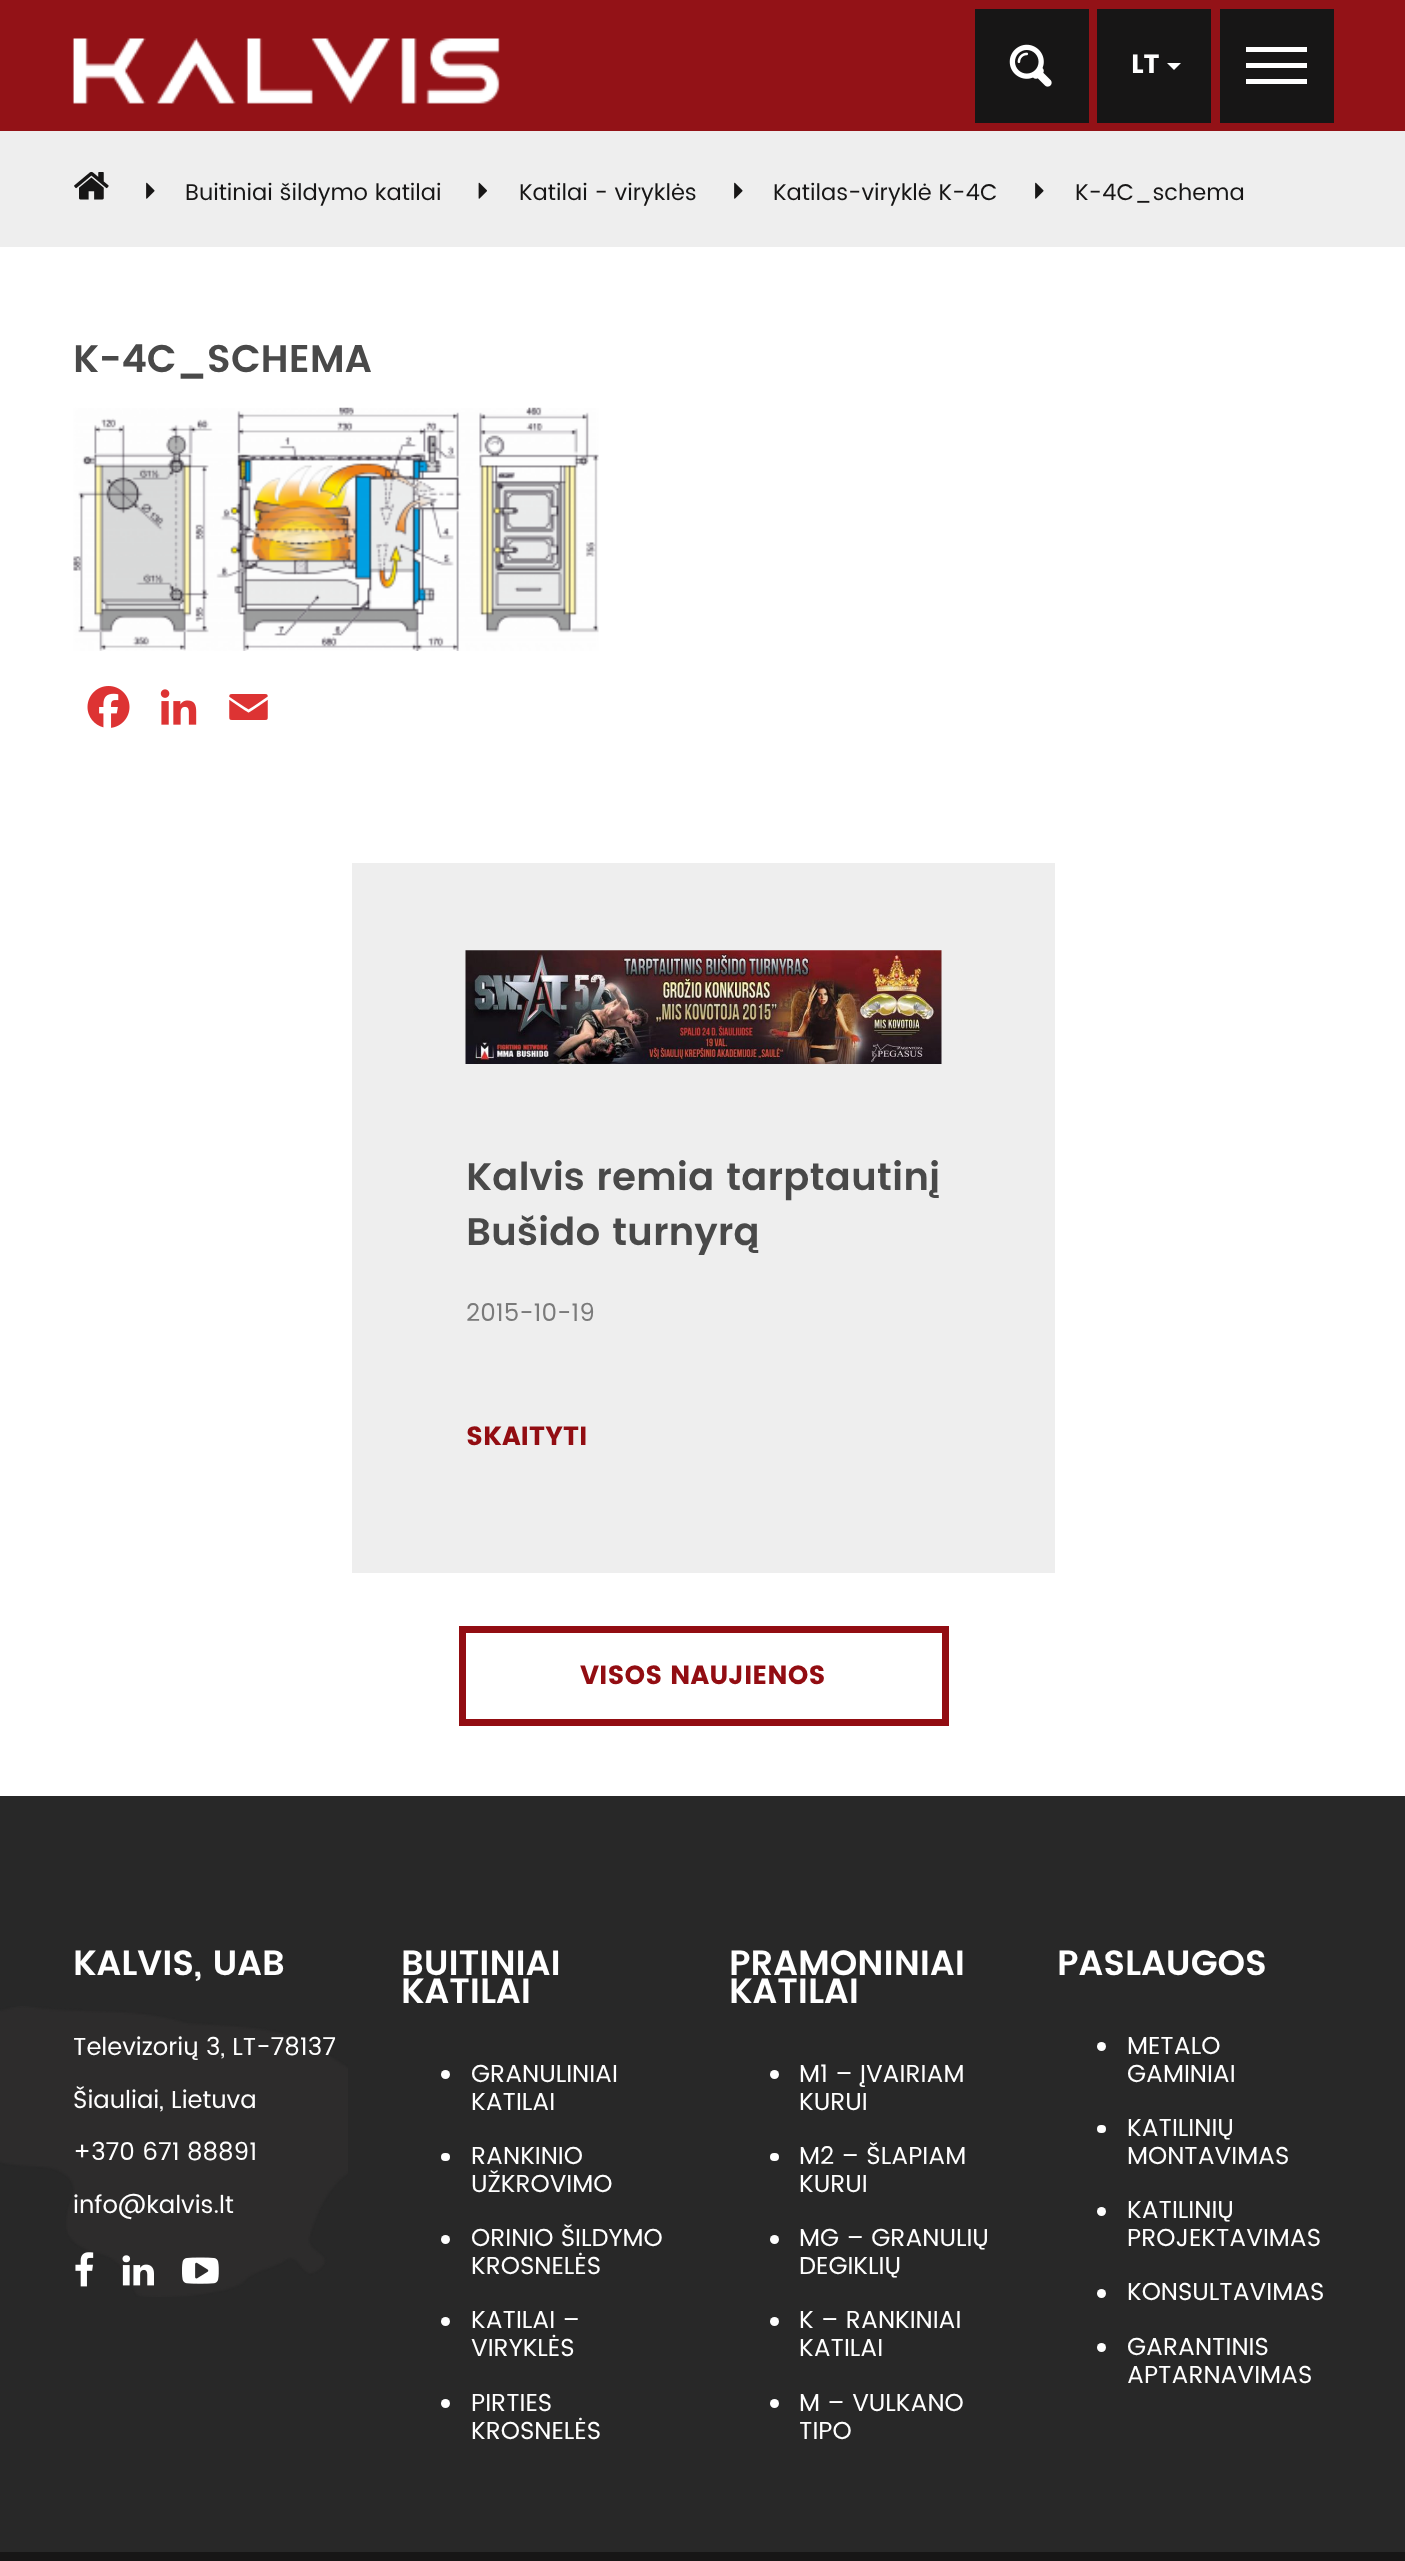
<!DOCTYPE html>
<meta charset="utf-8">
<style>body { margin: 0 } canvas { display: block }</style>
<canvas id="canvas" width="1405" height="2561"></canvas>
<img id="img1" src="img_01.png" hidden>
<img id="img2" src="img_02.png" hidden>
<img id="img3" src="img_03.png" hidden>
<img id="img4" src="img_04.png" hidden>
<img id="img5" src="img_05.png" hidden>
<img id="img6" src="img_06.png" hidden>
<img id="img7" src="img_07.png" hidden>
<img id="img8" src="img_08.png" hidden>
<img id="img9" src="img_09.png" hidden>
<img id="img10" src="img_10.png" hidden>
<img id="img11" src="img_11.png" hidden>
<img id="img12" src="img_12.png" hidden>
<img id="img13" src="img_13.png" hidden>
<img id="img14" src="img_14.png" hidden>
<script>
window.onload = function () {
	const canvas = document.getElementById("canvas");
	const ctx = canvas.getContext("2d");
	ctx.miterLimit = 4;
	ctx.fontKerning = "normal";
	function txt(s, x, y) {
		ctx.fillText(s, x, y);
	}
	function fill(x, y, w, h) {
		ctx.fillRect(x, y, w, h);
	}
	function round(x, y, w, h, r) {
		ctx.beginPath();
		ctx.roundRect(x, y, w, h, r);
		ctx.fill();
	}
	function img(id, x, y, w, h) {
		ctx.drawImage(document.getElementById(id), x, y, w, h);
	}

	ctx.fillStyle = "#FFFFFF";
	fill(0, 0, 1405, 2561);
	ctx.fillStyle = "#931217";
	fill(0, 0, 1405, 131);
	img("img1", 72, 38, 428, 66);
	ctx.fillStyle = "#171616";
	fill(975, 9, 114, 114);
	img("img2", 1009, 44, 43, 43);
	fill(1097, 9, 114, 114);
	ctx.fillStyle = "#FFFFFF";
	ctx.beginPath();
	ctx.moveTo(1167, 63);
	ctx.lineTo(1181, 63);
	ctx.lineTo(1174, 70);
	ctx.closePath();
	ctx.fill();
	ctx.fillStyle = "#171616";
	fill(1220, 9, 114, 114);
	ctx.fillStyle = "#FFFFFF";
	fill(1246, 47, 61, 5);
	fill(1246, 63, 61, 5);
	fill(1246, 79, 61, 5);
	ctx.fillStyle = "#EEEEEE";
	fill(0, 131, 1405, 116);
	img("img3", 74, 171, 35, 29);
	img("img4", 146, 182, 9, 17);
	img("img5", 478, 182, 9, 17);
	img("img4", 734, 182, 9, 17);
	img("img4", 1035, 182, 9, 17);
	img("img6", 73, 407, 526, 244);
	img("img7", 87, 686, 43, 42);
	img("img8", 160, 689, 37, 36);
	img("img9", 229, 694, 39, 26);
	fill(352, 863, 703, 710);
	img("img10", 465, 950, 477, 114);
	ctx.strokeStyle = "#920D12";
	ctx.lineWidth = 7;
	ctx.strokeRect(462.5, 1629.5, 483, 93);
	ctx.fillStyle = "#282828";
	fill(0, 1796, 1405, 756);
	img("img11", 0, 2006, 348, 291);
	img("img12", 75, 2252, 19, 35);
	img("img13", 122, 2255, 32, 31);
	img("img14", 182, 2257, 37, 27);
	ctx.fillStyle = "#FFFFFF";
	ctx.beginPath();
	ctx.arc(445.5, 2074.5, 4.5, 0, Math.PI * 2);
	ctx.fill();
	round(441, 2153, 9, 8, 4);
	ctx.beginPath();
	ctx.arc(445.5, 2239.5, 4.5, 0, Math.PI * 2);
	ctx.fill();
	ctx.beginPath();
	ctx.arc(445.5, 2321.5, 4.5, 0, Math.PI * 2);
	ctx.fill();
	ctx.beginPath();
	ctx.arc(445.5, 2403.5, 4.5, 0, Math.PI * 2);
	ctx.fill();
	ctx.beginPath();
	ctx.arc(774.5, 2074.5, 4.5, 0, Math.PI * 2);
	ctx.fill();
	round(770, 2153, 9, 8, 4);
	ctx.beginPath();
	ctx.arc(774.5, 2239.5, 4.5, 0, Math.PI * 2);
	ctx.fill();
	ctx.beginPath();
	ctx.arc(774.5, 2321.5, 4.5, 0, Math.PI * 2);
	ctx.fill();
	ctx.beginPath();
	ctx.arc(774.5, 2403.5, 4.5, 0, Math.PI * 2);
	ctx.fill();
	ctx.beginPath();
	ctx.arc(1101.5, 2046.5, 4.5, 0, Math.PI * 2);
	ctx.fill();
	round(1097, 2125, 9, 8, 4);
	ctx.beginPath();
	ctx.arc(1101.5, 2211.5, 4.5, 0, Math.PI * 2);
	ctx.fill();
	ctx.beginPath();
	ctx.arc(1101.5, 2293.5, 4.5, 0, Math.PI * 2);
	ctx.fill();
	ctx.beginPath();
	ctx.arc(1101.5, 2347.5, 4.5, 0, Math.PI * 2);
	ctx.fill();
	ctx.fillStyle = "#171616";
	fill(0, 2552, 1405, 9);
	ctx.font = "bold 26.25px Poppins";
	ctx.fillStyle = "#FFFFFF";
	txt("LT", 1131, 73);
	ctx.font = "22.75px Poppins";
	ctx.fillStyle = "#171616";
	txt("Buitiniai šildymo katilai", 185, 200);
	txt("Katilai - viryklės", 519, 200);
	txt("Katilas-viryklė K-4C", 773, 200);
	txt("K-4C_schema", 1075, 200);
	ctx.font = "600 38.5px Poppins";
	ctx.fillStyle = "#494949";
	txt("K-4C_SCHEMA", 73, 372);
	txt("Kalvis remia tarptautinį", 466, 1190);
	txt("Bušido turnyrą", 466, 1245);
	ctx.font = "24.5px Poppins";
	ctx.fillStyle = "#7A7A7A";
	txt("2015-10-19", 466, 1321);
	ctx.font = "bold 26.25px Poppins";
	ctx.fillStyle = "#920D12";
	txt("SKAITYTI", 466, 1445);
	txt("VISOS NAUJIENOS", 580, 1684);
	ctx.font = "600 35px Poppins";
	ctx.fillStyle = "#FFFFFF";
	txt("KALVIS, UAB", 73, 1975);
	ctx.font = "24.5px Poppins";
	txt("Televizorių 3, LT-78137", 73, 2055);
	txt("Šiauliai, Lietuva", 73, 2108);
	txt("+370 671 88891", 73, 2160);
	txt("info@kalvis.lt", 73, 2213);
	ctx.font = "600 35px Poppins";
	txt("BUITINIAI", 401, 1975);
	txt("KATILAI", 401, 2003);
	ctx.font = "24.5px Poppins";
	txt("GRANULINIAI", 471, 2082);
	txt("KATILAI", 471, 2110);
	txt("RANKINIO", 471, 2164);
	txt("UŽKROVIMO", 471, 2192);
	txt("ORINIO ŠILDYMO", 471, 2246);
	txt("KROSNELĖS", 471, 2274);
	txt("KATILAI –", 471, 2328);
	txt("VIRYKLĖS", 471, 2356);
	txt("PIRTIES", 471, 2411);
	txt("KROSNELĖS", 471, 2439);
	ctx.font = "600 35px Poppins";
	txt("PRAMONINIAI", 729, 1975);
	txt("KATILAI", 729, 2003);
	ctx.font = "24.5px Poppins";
	txt("M1 – ĮVAIRIAM", 799, 2082);
	txt("KURUI", 799, 2110);
	txt("M2 – ŠLAPIAM", 799, 2164);
	txt("KURUI", 799, 2192);
	txt("MG – GRANULIŲ", 799, 2246);
	txt("DEGIKLIŲ", 799, 2274);
	txt("K – RANKINIAI", 799, 2328);
	txt("KATILAI", 799, 2356);
	txt("M – VULKANO", 799, 2411);
	txt("TIPO", 799, 2439);
	ctx.font = "600 35px Poppins";
	txt("PASLAUGOS", 1057, 1975);
	ctx.font = "24.5px Poppins";
	txt("METALO", 1127, 2054);
	txt("GAMINIAI", 1127, 2082);
	txt("KATILINIŲ", 1127, 2136);
	txt("MONTAVIMAS", 1127, 2164);
	txt("KATILINIŲ", 1127, 2218);
	txt("PROJEKTAVIMAS", 1127, 2246);
	txt("KONSULTAVIMAS", 1127, 2300);
	txt("GARANTINIS", 1127, 2355);
	txt("APTARNAVIMAS", 1127, 2383);
};
</script>
